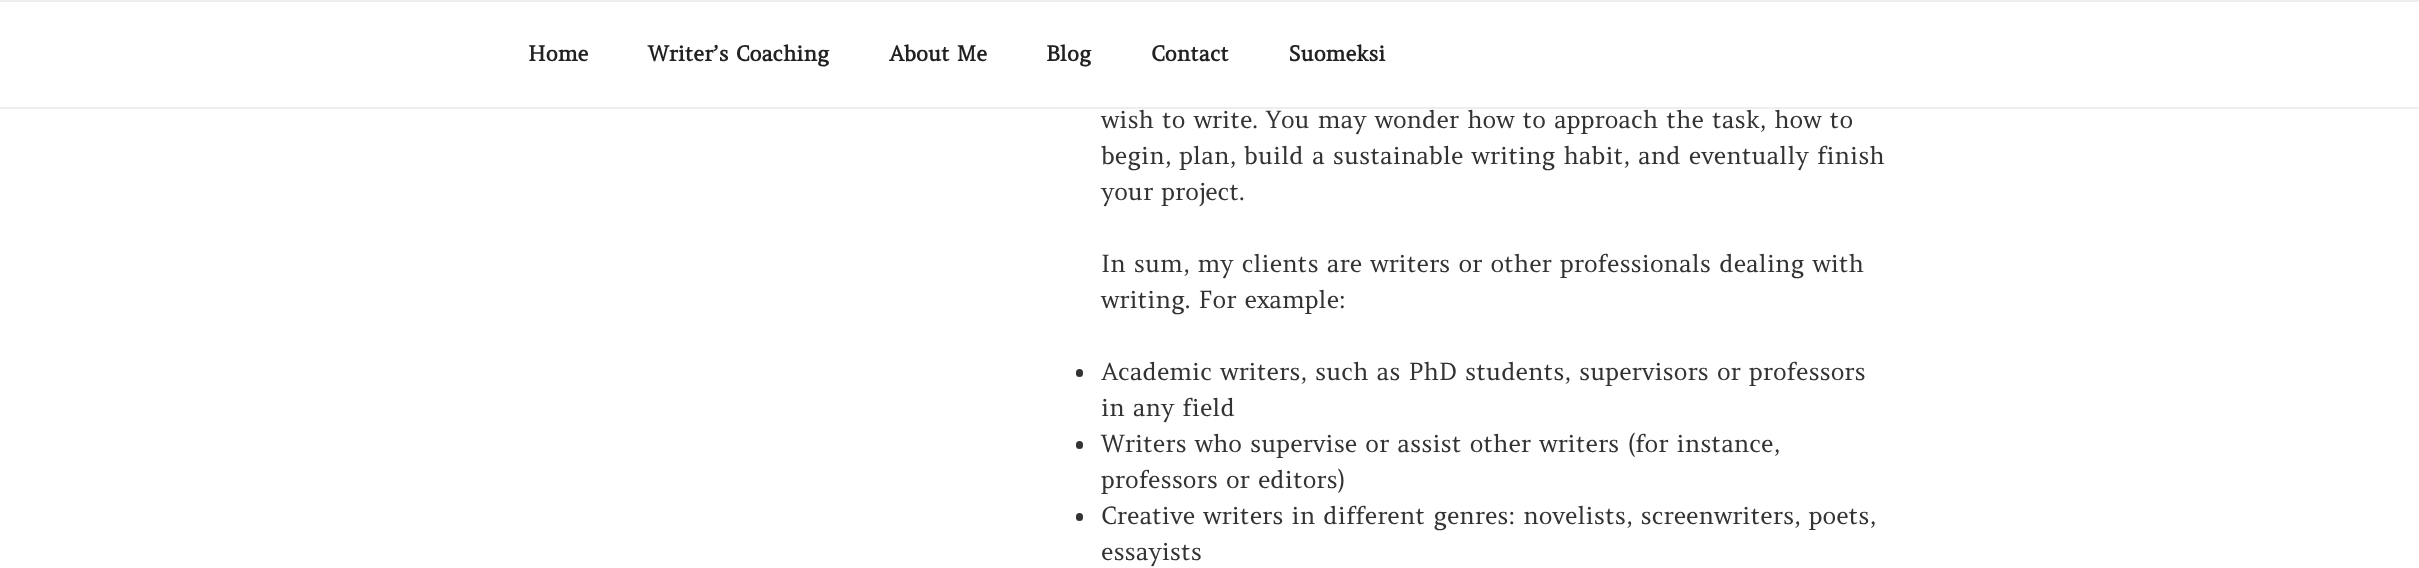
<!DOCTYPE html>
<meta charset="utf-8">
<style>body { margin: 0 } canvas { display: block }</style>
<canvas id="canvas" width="2419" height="568"></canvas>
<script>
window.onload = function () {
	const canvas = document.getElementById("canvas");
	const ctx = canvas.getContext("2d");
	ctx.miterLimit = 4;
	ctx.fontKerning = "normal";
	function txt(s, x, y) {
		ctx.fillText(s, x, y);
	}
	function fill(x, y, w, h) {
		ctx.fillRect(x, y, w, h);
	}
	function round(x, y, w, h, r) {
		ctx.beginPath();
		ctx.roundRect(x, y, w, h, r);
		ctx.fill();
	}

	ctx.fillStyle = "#FFFFFF";
	fill(0, 0, 2419, 568);
	ctx.fillStyle = "#EEEEEE";
	fill(0, 0, 2419, 2);
	fill(0, 107, 2419, 2);
	ctx.fillStyle = "#333333";
	round(1076, 369, 7, 8, 3.5);
	round(1076, 441, 7, 8, 3.5);
	round(1076, 513, 7, 8, 3.5);
	ctx.font = "bold 21px Amethysta";
	ctx.fillStyle = "#222222";
	txt("Home", 528, 61);
	txt("Writer’s Coaching", 648, 61);
	txt("About Me", 889, 61);
	txt("Blog", 1046, 61);
	txt("Contact", 1151, 61);
	txt("Suomeksi", 1289, 61);
	ctx.font = "24px Amethysta";
	ctx.fillStyle = "#333333";
	txt("wish to write. You may wonder how to approach the task, how to", 1101, 128);
	txt("begin, plan, build a sustainable writing habit, and eventually finish", 1101, 164);
	txt("your project.", 1101, 200);
	txt("In sum, my clients are writers or other professionals dealing with", 1101, 272);
	txt("writing. For example:", 1101, 308);
	txt("Academic writers, such as PhD students, supervisors or professors", 1101, 380);
	txt("in any field", 1101, 416);
	txt("Writers who supervise or assist other writers (for instance,", 1101, 452);
	txt("professors or editors)", 1101, 488);
	txt("Creative writers in different genres: novelists, screenwriters, poets,", 1101, 524);
	txt("essayists", 1101, 560);
};
</script>
